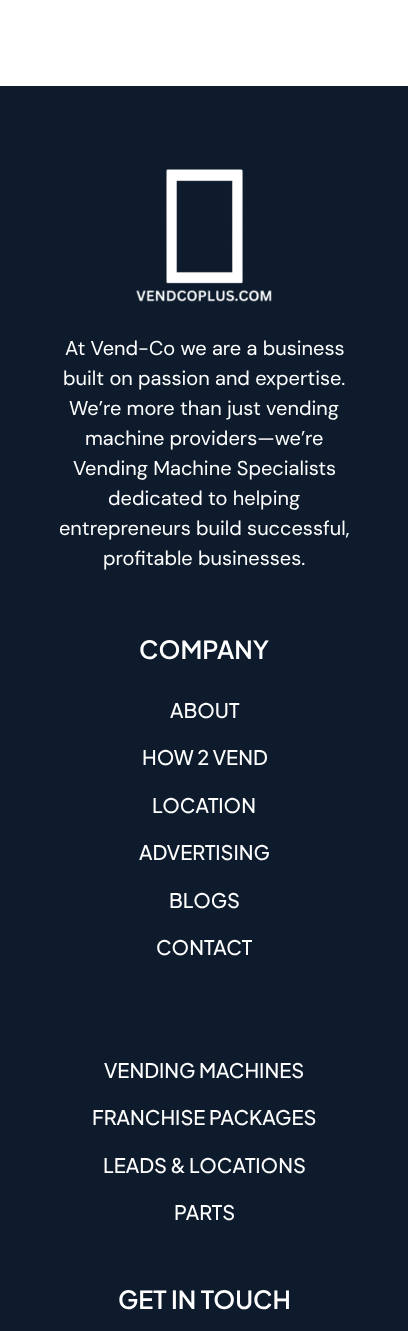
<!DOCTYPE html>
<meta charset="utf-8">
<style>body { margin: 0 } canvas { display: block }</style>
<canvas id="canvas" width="408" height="1331"></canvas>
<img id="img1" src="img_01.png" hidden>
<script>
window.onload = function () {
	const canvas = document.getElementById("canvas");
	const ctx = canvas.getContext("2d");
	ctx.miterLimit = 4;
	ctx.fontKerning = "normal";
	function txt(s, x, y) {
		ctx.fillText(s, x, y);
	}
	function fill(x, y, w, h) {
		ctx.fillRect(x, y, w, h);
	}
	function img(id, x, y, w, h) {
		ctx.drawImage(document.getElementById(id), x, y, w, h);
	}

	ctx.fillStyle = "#FFFFFF";
	fill(0, 0, 408, 1331);
	ctx.fillStyle = "#0D1B2C";
	fill(0, 86, 408, 1245);
	img("img1", 136, 169, 136, 133);
	ctx.font = "20px DM Sans";
	ctx.fillStyle = "#FFFFFF";
	txt("At Vend-Co we are a business", 65, 355);
	txt("built on passion and expertise.", 63, 385);
	txt("We’re more than just vending", 69, 415);
	txt("machine providers—we’re", 85, 445);
	txt("Vending Machine Specialists", 73, 475);
	txt("dedicated to helping", 108, 505);
	txt("entrepreneurs build successful,", 59, 535);
	txt("profitable businesses.", 103, 565);
	ctx.font = "600 25px Plus Jakarta Sans";
	txt("COMPANY", 139, 659);
	ctx.font = "500 20px Plus Jakarta Sans";
	txt("ABOUT", 170, 718);
	txt("HOW 2 VEND", 142, 765);
	txt("LOCATION", 152, 813);
	txt("ADVERTISING", 139, 860);
	txt("BLOGS", 169, 908);
	txt("CONTACT", 156, 955);
	txt("VENDING MACHINES", 104, 1078);
	txt("FRANCHISE PACKAGES", 92, 1125);
	txt("LEADS & LOCATIONS", 103, 1173);
	txt("PARTS", 174, 1220);
	ctx.font = "600 25px Plus Jakarta Sans";
	txt("GET IN TOUCH", 118, 1309);
};
</script>
